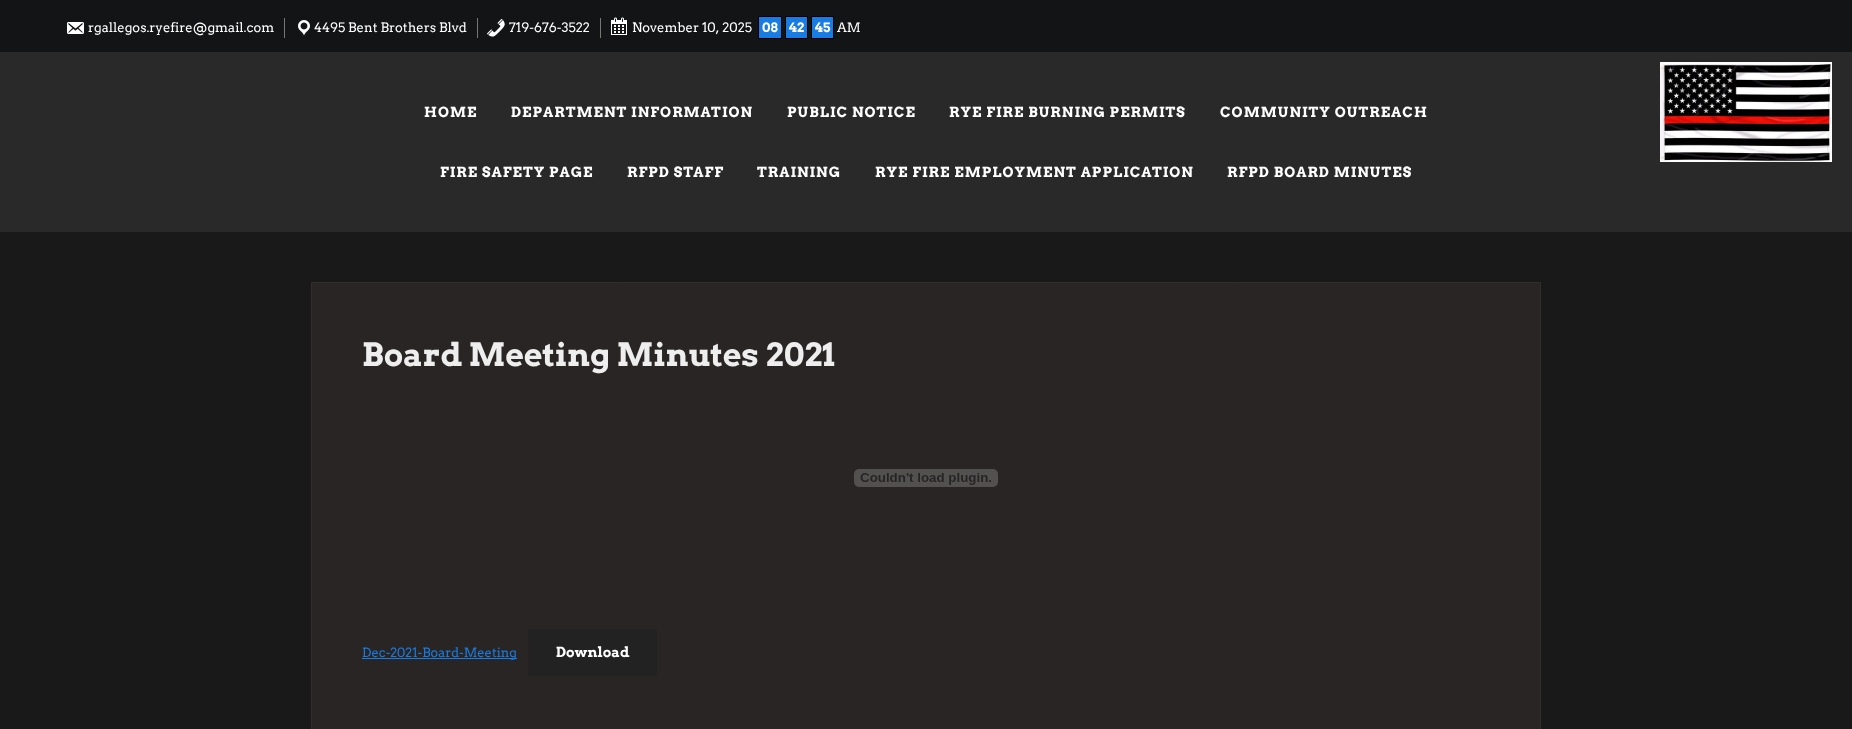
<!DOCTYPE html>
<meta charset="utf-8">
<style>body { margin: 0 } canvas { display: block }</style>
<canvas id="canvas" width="1852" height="729"></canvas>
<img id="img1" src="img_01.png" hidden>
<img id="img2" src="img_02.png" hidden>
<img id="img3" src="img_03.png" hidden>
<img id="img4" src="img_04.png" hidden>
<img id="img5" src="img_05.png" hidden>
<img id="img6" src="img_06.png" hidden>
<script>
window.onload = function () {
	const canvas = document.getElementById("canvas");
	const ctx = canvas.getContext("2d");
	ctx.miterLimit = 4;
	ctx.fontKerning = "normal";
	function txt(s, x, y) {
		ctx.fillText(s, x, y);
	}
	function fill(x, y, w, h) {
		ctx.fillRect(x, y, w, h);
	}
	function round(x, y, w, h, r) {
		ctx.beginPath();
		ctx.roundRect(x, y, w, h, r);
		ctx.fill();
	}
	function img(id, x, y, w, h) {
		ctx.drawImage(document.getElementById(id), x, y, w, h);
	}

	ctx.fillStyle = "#1A1919";
	fill(0, 0, 1852, 729);
	ctx.fillStyle = "#121416";
	fill(0, 0, 1852, 52);
	ctx.fillStyle = "#777777";
	fill(284, 18, 1, 20);
	img("img1", 67, 22, 17, 12);
	fill(477, 18, 1, 20);
	img("img2", 298, 20, 12, 16);
	fill(600, 18, 1, 20);
	img("img3", 487, 18, 18, 19);
	img("img4", 611, 17, 16, 18);
	ctx.fillStyle = "#187CE3";
	ctx.beginPath();
	ctx.rect(758.5, 16.5, 23, 22);
	ctx.fill();
	ctx.strokeStyle = "#000000";
	ctx.stroke();
	ctx.beginPath();
	ctx.rect(785.5, 16.5, 22, 22);
	ctx.fill();
	ctx.stroke();
	ctx.beginPath();
	ctx.rect(811.5, 16.5, 22, 22);
	ctx.fill();
	ctx.stroke();
	ctx.fillStyle = "#2A2929";
	fill(0, 52, 1852, 180);
	img("img5", 1660, 62, 172, 100);
	ctx.fillStyle = "#292525";
	ctx.beginPath();
	ctx.rect(311.5, 282.5, 1229, 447);
	ctx.fill();
	ctx.strokeStyle = "#332D2D";
	ctx.stroke();
	img("img6", 854, 469, 144, 18);
	ctx.fillStyle = "#187CE3";
	fill(362, 658, 155, 1);
	ctx.fillStyle = "#222222";
	round(528, 629, 129, 47, 2);
	ctx.font = "13px Arvo";
	ctx.fillStyle = "#FFFFFF";
	txt("rgallegos.ryefire@gmail.com", 88, 32);
	txt("4495 Bent Brothers Blvd", 314, 32);
	txt("719-676-3522", 509, 32);
	txt("November 10, 2025", 632, 32);
	ctx.font = "bold 13px Arvo";
	txt("08", 762, 32);
	txt("42", 789, 32);
	txt("45", 815, 32);
	ctx.font = "13px Arvo";
	txt("AM", 837, 32);
	ctx.letterSpacing = "1px";
	ctx.font = "bold 14px Arvo";
	txt("HOME", 424, 117);
	txt("DEPARTMENT INFORMATION", 511, 117);
	txt("PUBLIC NOTICE", 787, 117);
	txt("RYE FIRE BURNING PERMITS", 949, 117);
	txt("COMMUNITY OUTREACH", 1220, 117);
	txt("FIRE SAFETY PAGE", 440, 177);
	txt("RFPD STAFF", 627, 177);
	txt("TRAINING", 757, 177);
	txt("RYE FIRE EMPLOYMENT APPLICATION", 875, 177);
	txt("RFPD BOARD MINUTES", 1227, 177);
	ctx.letterSpacing = "0px";
	ctx.font = "bold 32px Arvo";
	ctx.fillStyle = "#EEEEEE";
	txt("Board Meeting Minutes 2021", 362, 366);
	ctx.font = "12.75px Arvo";
	ctx.fillStyle = "#187CE3";
	txt("Dec-2021-Board-Meeting", 362, 657);
	ctx.font = "bold 14px Arvo";
	ctx.fillStyle = "#FFFFFF";
	txt("Download", 556, 657);
};
</script>
